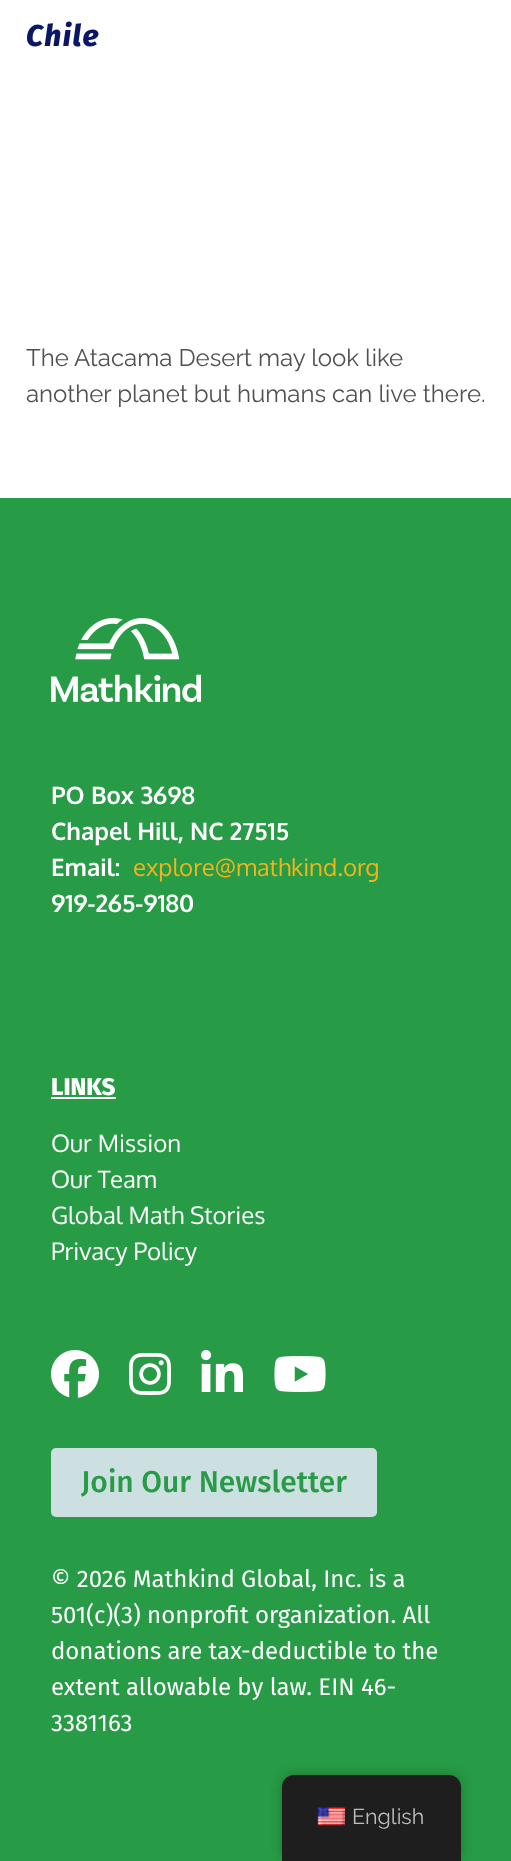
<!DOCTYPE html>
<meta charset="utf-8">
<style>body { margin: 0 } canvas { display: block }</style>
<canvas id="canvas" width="511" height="1861"></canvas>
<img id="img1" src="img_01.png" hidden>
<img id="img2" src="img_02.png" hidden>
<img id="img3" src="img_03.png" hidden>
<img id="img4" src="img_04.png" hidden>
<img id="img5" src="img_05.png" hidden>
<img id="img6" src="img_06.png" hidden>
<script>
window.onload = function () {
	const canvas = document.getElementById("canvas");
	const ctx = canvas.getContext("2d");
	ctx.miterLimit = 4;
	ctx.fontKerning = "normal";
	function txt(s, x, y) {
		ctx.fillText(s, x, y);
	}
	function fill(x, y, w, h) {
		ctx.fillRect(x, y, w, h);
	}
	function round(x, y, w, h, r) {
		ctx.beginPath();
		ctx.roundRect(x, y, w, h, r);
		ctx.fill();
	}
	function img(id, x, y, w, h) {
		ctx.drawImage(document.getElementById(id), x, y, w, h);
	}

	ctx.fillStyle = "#FFFFFF";
	fill(0, 0, 511, 1861);
	ctx.fillStyle = "#279B45";
	fill(0, 498, 511, 1363);
	img("img1", 51, 618, 150, 84);
	ctx.fillStyle = "#FFFFFF";
	fill(51, 1097, 65, 2);
	img("img2", 51, 1350, 48, 48);
	img("img3", 129, 1353, 42, 42);
	img("img4", 201, 1350, 42, 42);
	img("img5", 274, 1356, 52, 36);
	ctx.fillStyle = "#CCE0E2";
	round(51, 1448, 326, 69, 5);
	ctx.fillStyle = "rgba(0, 0, 0, 0.25)";
	ctx.filter = "blur(6px)";
	ctx.beginPath();
	ctx.roundRect(282, 1775, 179, 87, 12);
	ctx.fill();
	ctx.filter = "none";
	ctx.fillStyle = "#1E1E1E";
	ctx.beginPath();
	ctx.moveTo(294, 1775);
	ctx.lineTo(449, 1775);
	ctx.bezierCurveTo(455.5, 1775, 461, 1780.5, 461, 1787);
	ctx.lineTo(461, 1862);
	ctx.lineTo(282, 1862);
	ctx.lineTo(282, 1787);
	ctx.bezierCurveTo(282, 1780.5, 287.5, 1775, 294, 1775);
	ctx.closePath();
	ctx.fill();
	img("img6", 317, 1807, 28, 19);
	ctx.letterSpacing = "1.5px";
	ctx.font = "italic 800 30px Fira Sans";
	ctx.fillStyle = "#0A1766";
	txt("Chile", 26, 46);
	ctx.letterSpacing = "0px";
	ctx.font = "24px Raleway";
	ctx.fillStyle = "#515050";
	txt("The Atacama Desert may look like", 26, 366);
	txt("another planet but humans can live there.", 26, 402);
	ctx.font = "bold 24px Oxygen";
	ctx.fillStyle = "#FFFFFF";
	txt("PO Box 3698", 51, 804);
	txt("Chapel Hill, NC 27515", 51, 840);
	txt("Email:", 51, 876);
	ctx.font = "24px Oxygen";
	ctx.fillStyle = "#F2B41C";
	txt("explore@mathkind.org", 133, 876);
	ctx.font = "bold 24px Oxygen";
	ctx.fillStyle = "#FFFFFF";
	txt("919-265-9180", 51, 912);
	ctx.font = "800 24px Fira Sans";
	txt("LINKS", 51, 1095);
	ctx.font = "24px Oxygen";
	txt("Our Mission", 51, 1152);
	txt("Our Team", 51, 1188);
	txt("Global Math Stories", 51, 1224);
	txt("Privacy Policy", 51, 1260);
	ctx.font = "500 30px Fira Sans";
	ctx.fillStyle = "#279B45";
	txt("Join Our Newsletter", 81, 1492);
	ctx.font = "24px Fira Sans";
	ctx.fillStyle = "#FFFFFF";
	txt("© 2026 Mathkind Global, Inc. is a", 51, 1587);
	txt("501(c)(3) nonprofit organization. All", 51, 1623);
	txt("donations are tax-deductible to the", 51, 1659);
	txt("extent allowable by law. EIN 46-", 51, 1695);
	txt("3381163", 51, 1731);
	ctx.font = "21.5px Raleway";
	ctx.fillStyle = "#BDBDBD";
	txt("English", 352, 1824);
};
</script>
